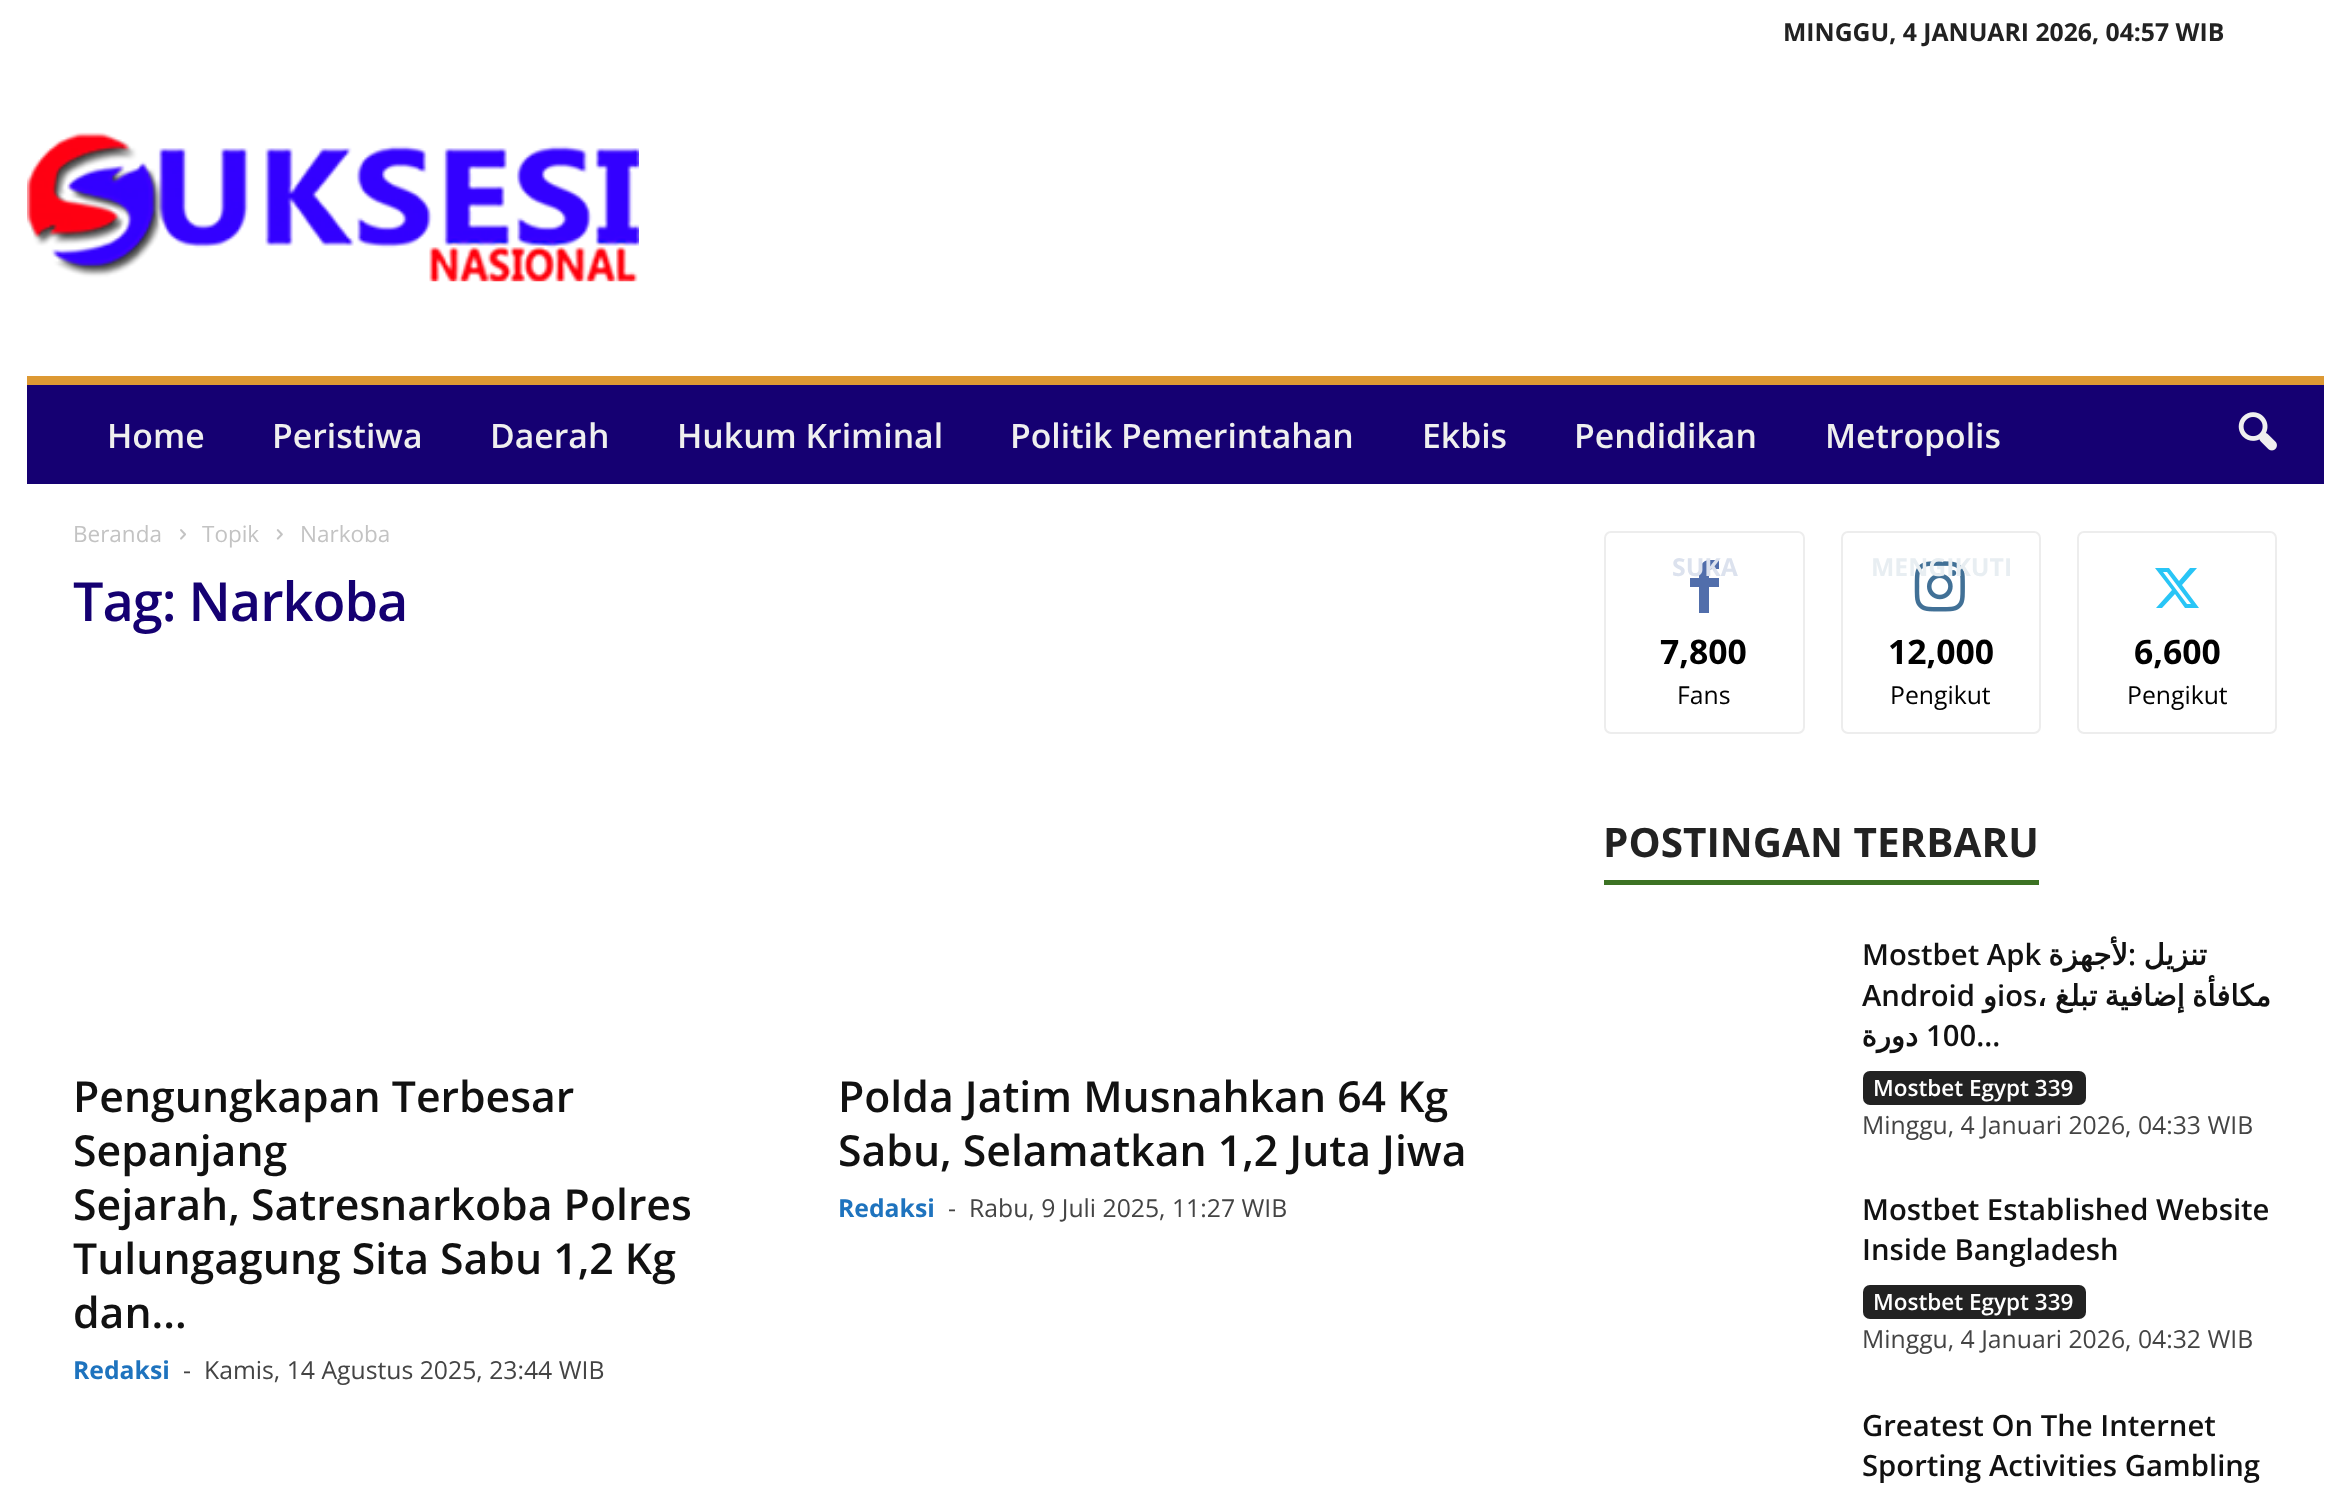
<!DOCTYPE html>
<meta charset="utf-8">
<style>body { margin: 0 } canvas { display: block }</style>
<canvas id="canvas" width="2347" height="1506"></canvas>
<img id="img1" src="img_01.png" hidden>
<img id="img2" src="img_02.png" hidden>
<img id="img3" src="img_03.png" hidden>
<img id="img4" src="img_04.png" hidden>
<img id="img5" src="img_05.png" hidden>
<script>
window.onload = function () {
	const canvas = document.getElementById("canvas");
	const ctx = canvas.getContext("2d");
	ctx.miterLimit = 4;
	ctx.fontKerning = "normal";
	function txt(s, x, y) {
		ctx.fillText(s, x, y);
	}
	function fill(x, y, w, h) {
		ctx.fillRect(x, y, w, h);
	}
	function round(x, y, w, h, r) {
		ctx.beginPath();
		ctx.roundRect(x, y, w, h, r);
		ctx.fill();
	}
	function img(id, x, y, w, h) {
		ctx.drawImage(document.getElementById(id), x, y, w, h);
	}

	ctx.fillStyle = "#FFFFFF";
	fill(0, 0, 2347, 1506);
	img("img1", 27, 132, 612, 150);
	ctx.fillStyle = "#150072";
	fill(27, 385, 2297, 99);
	ctx.fillStyle = "#DD9933";
	fill(27, 376, 2297, 9);
	img("img2", 2238, 412, 39, 39);
	img("img3", 180, 529, 6, 11);
	img("img4", 276, 529, 7, 11);
	ctx.beginPath();
	ctx.roundRect(1605, 532, 199, 201, 6);
	ctx.strokeStyle = "#EDEDED";
	ctx.lineWidth = 2;
	ctx.stroke();
	ctx.fillStyle = "#516EAB";
	ctx.beginPath();
	ctx.moveTo(1719, 569);
	ctx.bezierCurveTo(1708, 569, 1709, 568, 1709, 578);
	ctx.lineTo(1719, 578);
	ctx.lineTo(1719, 587);
	ctx.lineTo(1709, 587);
	ctx.lineTo(1709, 613);
	ctx.lineTo(1699, 613);
	ctx.lineTo(1699, 587);
	ctx.lineTo(1690, 587);
	ctx.lineTo(1690, 578);
	ctx.lineTo(1699, 578);
	ctx.bezierCurveTo(1699, 571, 1699, 562, 1708, 560);
	ctx.lineTo(1719, 560);
	ctx.closePath();
	ctx.fill();
	ctx.beginPath();
	ctx.roundRect(1842, 532, 198, 201, 6);
	ctx.stroke();
	img("img5", 1914, 561, 51, 51);
	ctx.beginPath();
	ctx.roundRect(2078, 532, 198, 201, 6);
	ctx.stroke();
	ctx.fillStyle = "#29C5F6";
	ctx.beginPath();
	ctx.moveTo(2190, 568);
	ctx.lineTo(2197, 568);
	ctx.lineTo(2182, 585);
	ctx.lineTo(2199, 608);
	ctx.lineTo(2185, 608);
	ctx.lineTo(2175, 594);
	ctx.lineTo(2162, 608);
	ctx.lineTo(2156, 608);
	ctx.lineTo(2172, 590);
	ctx.lineTo(2155, 568);
	ctx.lineTo(2169, 568);
	ctx.lineTo(2179, 581);
	ctx.closePath();
	ctx.moveTo(2187, 604);
	ctx.lineTo(2191, 604);
	ctx.lineTo(2167, 572);
	ctx.lineTo(2163, 572);
	ctx.closePath();
	ctx.fill();
	ctx.fillStyle = "#3C7223";
	fill(1604, 880, 435, 5);
	ctx.fillStyle = "#222222";
	round(1863, 1071, 223, 34, 7);
	round(1863, 1285, 223, 34, 7);
	ctx.font = "bold 24.75px Open Sans";
	txt("MINGGU, 4 JANUARI 2026, 04:57 WIB", 1783, 41);
	ctx.font = "600 33.75px Open Sans";
	ctx.fillStyle = "#EFEFEF";
	txt("Home", 107, 448);
	txt("Peristiwa", 272, 448);
	txt("Daerah", 490, 448);
	txt("Hukum Kriminal", 677, 448);
	txt("Politik Pemerintahan", 1010, 448);
	txt("Ekbis", 1422, 448);
	txt("Pendidikan", 1574, 448);
	txt("Metropolis", 1825, 448);
	ctx.font = "22.5px Open Sans";
	ctx.fillStyle = "#C3C3C3";
	txt("Beranda", 73, 542);
	txt("Topik", 202, 542);
	txt("Narkoba", 300, 542);
	ctx.letterSpacing = "-1px";
	ctx.font = "600 54px Open Sans";
	ctx.fillStyle = "#150072";
	txt("Tag: Narkoba", 73, 621);
	ctx.letterSpacing = "0px";
	ctx.font = "600 42.75px Open Sans";
	ctx.fillStyle = "#111111";
	txt("Pengungkapan Terbesar", 73, 1112);
	txt("Sepanjang", 73, 1166);
	txt("Sejarah, Satresnarkoba Polres", 73, 1220);
	txt("Tulungagung Sita Sabu 1,2 Kg", 73, 1274);
	txt("dan...", 73, 1328);
	ctx.font = "bold 24.75px Open Sans";
	ctx.fillStyle = "#1E73BE";
	txt("Redaksi", 73, 1379);
	ctx.font = "24.75px Open Sans";
	ctx.fillStyle = "#444444";
	txt("-", 183, 1379);
	txt("Kamis, 14 Agustus 2025, 23:44 WIB", 204, 1379);
	ctx.font = "600 42.75px Open Sans";
	ctx.fillStyle = "#111111";
	txt("Polda Jatim Musnahkan 64 Kg", 838, 1112);
	txt("Sabu, Selamatkan 1,2 Juta Jiwa", 838, 1166);
	ctx.font = "bold 24.75px Open Sans";
	ctx.fillStyle = "#1E73BE";
	txt("Redaksi", 838, 1217);
	ctx.font = "24.75px Open Sans";
	ctx.fillStyle = "#444444";
	txt("-", 948, 1217);
	txt("Rabu, 9 Juli 2025, 11:27 WIB", 969, 1217);
	ctx.font = "bold 24.75px Open Sans";
	ctx.fillStyle = "#DCE2EE";
	txt("SUKA", 1672, 576);
	ctx.font = "bold 33.75px Open Sans";
	ctx.fillStyle = "#000000";
	txt("7,800", 1660, 664);
	ctx.font = "24.75px Open Sans";
	txt("Fans", 1677, 704);
	ctx.font = "bold 24.75px Open Sans";
	ctx.fillStyle = "#E8EEF2";
	txt("MENGIKUTI", 1871, 576);
	ctx.font = "bold 33.75px Open Sans";
	ctx.fillStyle = "#000000";
	txt("12,000", 1888, 664);
	ctx.font = "24.75px Open Sans";
	txt("Pengikut", 1890, 704);
	ctx.font = "bold 33.75px Open Sans";
	txt("6,600", 2134, 664);
	ctx.font = "24.75px Open Sans";
	txt("Pengikut", 2127, 704);
	ctx.font = "bold 40.5px Open Sans";
	ctx.fillStyle = "#222222";
	txt("POSTINGAN TERBARU", 1603, 857);
	ctx.font = "600 29.25px Open Sans";
	ctx.fillStyle = "#111111";
	txt("Mostbet Apk", 1862, 965);
	ctx.direction = "rtl";
	ctx.font = "bold 29.25px DejaVu Sans";
	txt("لأجهزة", 2128, 965);
	ctx.font = "600 29.25px Open Sans";
	txt(":", 2136, 965);
	ctx.font = "bold 29.25px DejaVu Sans";
	txt("تنزيل", 2207, 965);
	ctx.direction = "ltr";
	ctx.font = "600 29.25px Open Sans";
	txt("Android", 1862, 1006);
	ctx.direction = "rtl";
	ctx.font = "bold 29.25px DejaVu Sans";
	txt("و", 1997, 1006);
	ctx.direction = "ltr";
	ctx.font = "600 29.25px Open Sans";
	txt("ios", 1997, 1006);
	ctx.font = "bold 29.25px DejaVu Sans";
	txt("،", 2037, 1006);
	ctx.wordSpacing = "-2px";
	ctx.direction = "rtl";
	txt("مكافأة إضافية تبلغ", 2271, 1006);
	ctx.wordSpacing = "0px";
	txt("دورة", 1918, 1046);
	ctx.direction = "ltr";
	ctx.font = "600 29.25px Open Sans";
	txt("100...", 1926, 1046);
	ctx.font = "600 22.5px Open Sans";
	ctx.fillStyle = "#FFFFFF";
	txt("Mostbet Egypt 339", 1873, 1096);
	ctx.font = "24.75px Open Sans";
	ctx.fillStyle = "#444444";
	txt("Minggu, 4 Januari 2026, 04:33 WIB", 1862, 1134);
	ctx.font = "600 29.25px Open Sans";
	ctx.fillStyle = "#111111";
	txt("Mostbet Established Website", 1862, 1220);
	txt("Inside Bangladesh", 1862, 1260);
	ctx.font = "600 22.5px Open Sans";
	ctx.fillStyle = "#FFFFFF";
	txt("Mostbet Egypt 339", 1873, 1310);
	ctx.font = "24.75px Open Sans";
	ctx.fillStyle = "#444444";
	txt("Minggu, 4 Januari 2026, 04:32 WIB", 1862, 1348);
	ctx.font = "600 29.25px Open Sans";
	ctx.fillStyle = "#111111";
	txt("Greatest On The Internet", 1862, 1436);
	txt("Sporting Activities Gambling", 1862, 1476);
};
</script>
